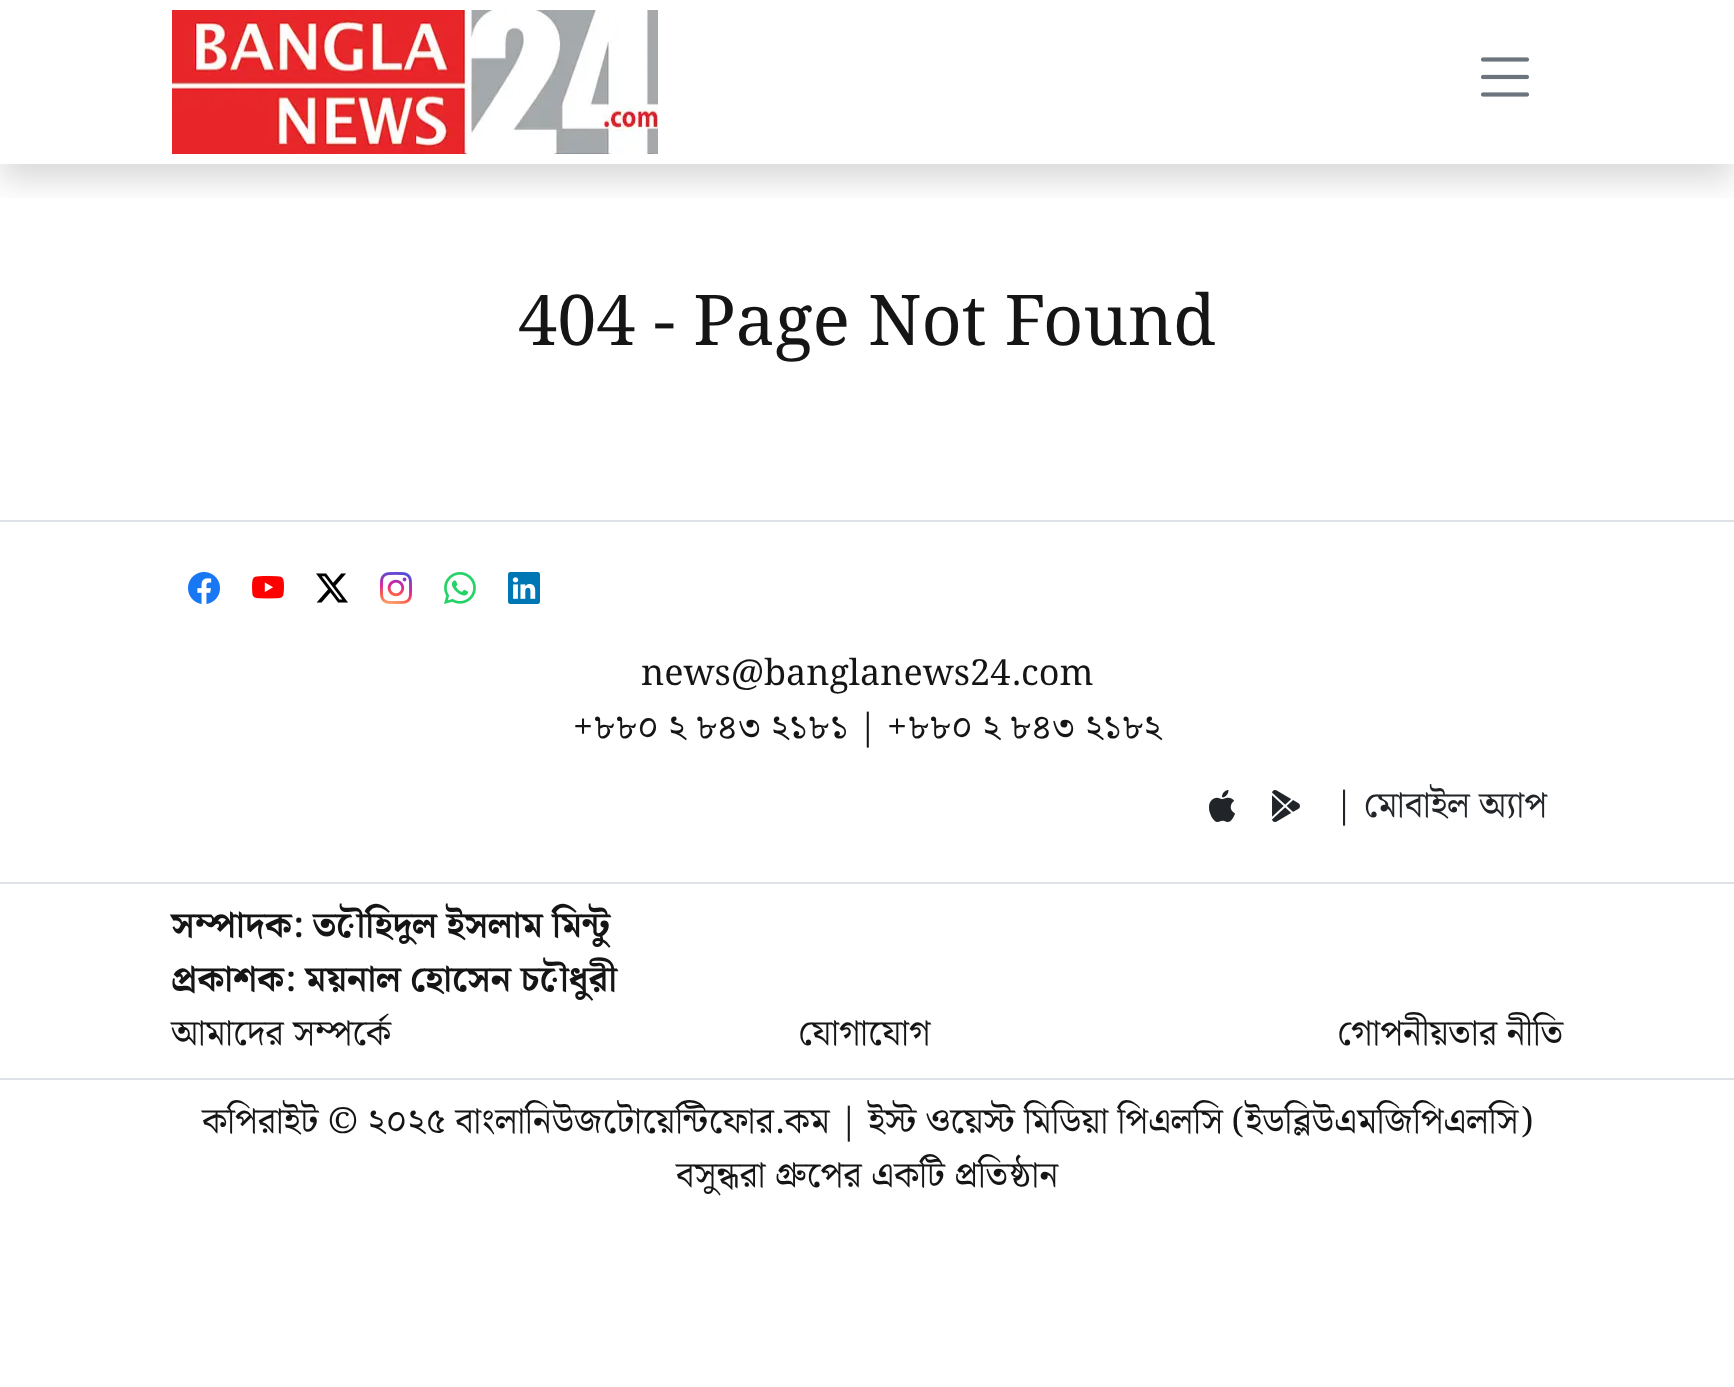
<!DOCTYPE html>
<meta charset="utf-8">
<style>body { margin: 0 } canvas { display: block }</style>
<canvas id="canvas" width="1734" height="1387"></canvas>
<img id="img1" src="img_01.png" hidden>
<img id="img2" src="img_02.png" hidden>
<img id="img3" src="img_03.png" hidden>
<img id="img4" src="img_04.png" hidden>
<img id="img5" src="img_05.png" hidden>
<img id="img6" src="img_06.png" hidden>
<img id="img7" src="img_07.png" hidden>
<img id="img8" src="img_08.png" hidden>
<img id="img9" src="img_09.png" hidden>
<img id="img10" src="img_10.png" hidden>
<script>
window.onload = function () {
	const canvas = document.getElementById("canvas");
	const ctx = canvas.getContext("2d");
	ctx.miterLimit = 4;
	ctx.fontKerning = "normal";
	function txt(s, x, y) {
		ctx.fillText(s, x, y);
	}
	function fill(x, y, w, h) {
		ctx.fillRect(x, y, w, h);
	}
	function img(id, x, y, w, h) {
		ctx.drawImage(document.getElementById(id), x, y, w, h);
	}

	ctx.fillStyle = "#FFFFFF";
	fill(0, 0, 1734, 1387);
	ctx.save();
	ctx.beginPath();
	ctx.rect(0, 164, 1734, 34);
	ctx.clip();
	ctx.fillStyle = "rgba(0, 0, 0, 0.15)";
	ctx.filter = "blur(16px)";
	ctx.beginPath();
	ctx.rect(0, 16, 1734, 164);
	ctx.fill();
	ctx.filter = "none";
	ctx.restore();
	img("img1", 172, 10, 486, 144);
	img("img2", 1481, 57, 48, 40);
	ctx.fillStyle = "#DEE2E6";
	fill(0, 520, 1734, 2);
	fill(0, 882, 1734, 2);
	img("img3", 188, 572, 32, 32);
	img("img4", 252, 575, 32, 24);
	img("img5", 316, 573, 32, 30);
	img("img6", 380, 572, 32, 32);
	img("img7", 444, 572, 32, 32);
	img("img8", 508, 572, 32, 32);
	img("img9", 1209, 790, 26, 32);
	img("img10", 1272, 790, 28, 32);
	fill(0, 1078, 1734, 2);
	ctx.font = "70px Noto Serif Bengali";
	ctx.fillStyle = "#141514";
	txt("404 - Page Not Found", 518, 345);
	ctx.font = "36px Noto Serif Bengali";
	txt("news@banglanews24.com", 641, 685);
	txt("+৮৮০ ২ ৮৪৩ ২১৮১ | +৮৮০ ২ ৮৪৩ ২১৮২", 573, 739);
	ctx.fillStyle = "#212529";
	txt("| মোবাইল অ্যাপ", 1334, 817);
	ctx.font = "bold 36px Noto Serif Bengali";
	ctx.fillStyle = "#141514";
	txt("সম্পাদক: তৌহিদুল ইসলাম মিন্টু", 171, 937);
	txt("প্রকাশক: ময়নাল হোসেন চৌধুরী", 171, 991);
	ctx.font = "36px Noto Serif Bengali";
	txt("আমাদের সম্পর্কে", 171, 1045);
	txt("যোগাযোগ", 798, 1045);
	txt("গোপনীয়তার নীতি", 1337, 1045);
	txt("কপিরাইট © ২০২৫ বাংলানিউজটোয়েন্টিফোর.কম | ইস্ট ওয়েস্ট মিডিয়া পিএলসি (ইডব্লিউএমজিপিএলসি)", 202, 1133);
	txt("বসুন্ধরা গ্রুপের একটি প্রতিষ্ঠান", 676, 1187);
};
</script>
